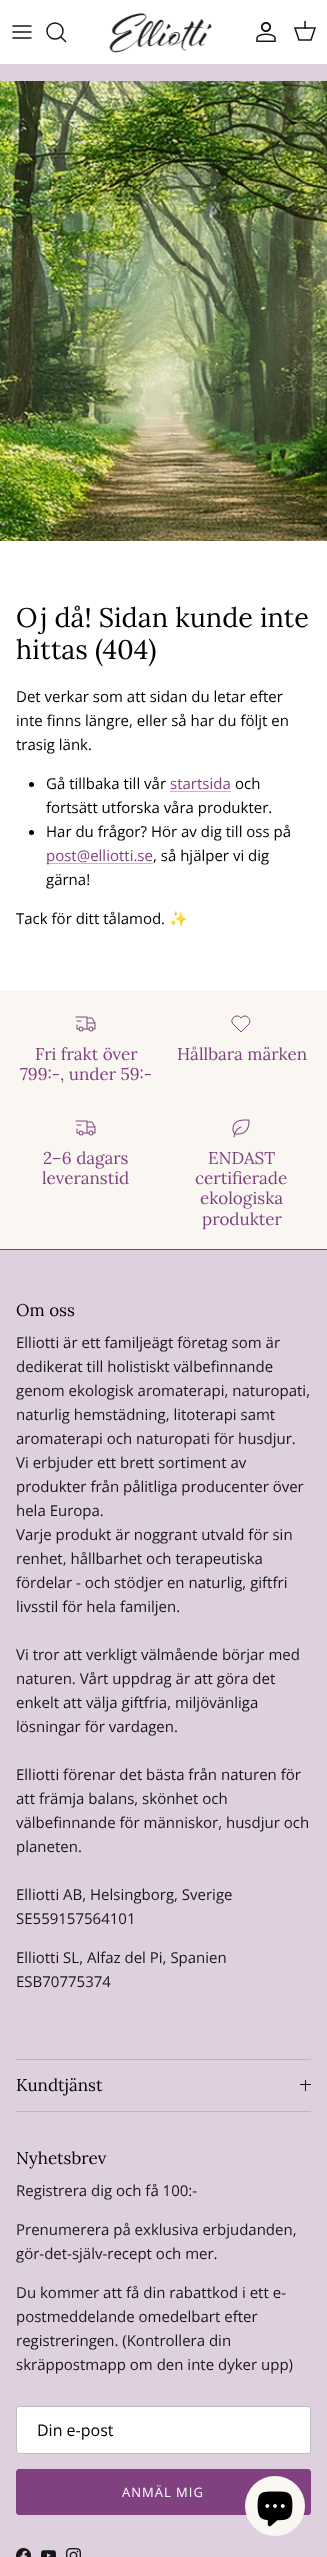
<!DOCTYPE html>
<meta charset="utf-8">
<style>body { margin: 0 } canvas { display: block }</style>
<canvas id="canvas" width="327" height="2557"></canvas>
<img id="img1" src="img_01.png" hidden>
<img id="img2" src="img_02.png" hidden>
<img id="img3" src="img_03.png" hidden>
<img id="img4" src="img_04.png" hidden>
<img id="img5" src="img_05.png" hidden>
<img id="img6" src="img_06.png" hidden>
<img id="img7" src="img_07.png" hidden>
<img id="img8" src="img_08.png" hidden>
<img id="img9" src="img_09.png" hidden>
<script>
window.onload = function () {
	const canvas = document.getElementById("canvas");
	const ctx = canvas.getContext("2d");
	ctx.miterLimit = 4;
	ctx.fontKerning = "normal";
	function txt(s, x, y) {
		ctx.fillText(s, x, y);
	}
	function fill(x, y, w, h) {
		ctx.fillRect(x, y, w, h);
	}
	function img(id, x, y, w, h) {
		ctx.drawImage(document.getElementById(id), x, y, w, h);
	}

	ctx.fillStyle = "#FFFFFF";
	fill(0, 0, 327, 2557);
	ctx.beginPath();
	ctx.moveTo(13, 32);
	ctx.lineTo(31, 32);
	ctx.moveTo(13, 26);
	ctx.lineTo(31, 26);
	ctx.moveTo(13, 38);
	ctx.lineTo(31, 38);
	ctx.strokeStyle = "#171717";
	ctx.lineWidth = 1.5;
	ctx.lineCap = "round";
	ctx.lineJoin = "round";
	ctx.stroke();
	ctx.beginPath();
	ctx.arc(55, 31, 8, 0, Math.PI * 2);
	ctx.stroke();
	ctx.beginPath();
	ctx.moveTo(61, 37);
	ctx.lineTo(65.5, 41.5);
	ctx.lineCap = "square";
	ctx.lineJoin = "miter";
	ctx.stroke();
	img("img1", 109, 13, 103, 40);
	img("img2", 256, 22, 20, 20);
	ctx.beginPath();
	ctx.moveTo(295, 28);
	ctx.lineTo(315, 28);
	ctx.lineTo(311, 40);
	ctx.lineTo(299, 40);
	ctx.closePath();
	ctx.lineCap = "butt";
	ctx.stroke();
	ctx.fillStyle = "rgba(23, 23, 23, 0.75)";
	fill(304, 21, 2, 8);
	ctx.fillStyle = "#DFD0DF";
	fill(0, 64, 327, 17);
	img("img3", 0, 81, 327, 460);
	ctx.fillStyle = "#000000";
	ctx.beginPath();
	ctx.arc(31.5, 784.5, 2.5, 0, Math.PI * 2);
	ctx.fill();
	ctx.fillStyle = "#CCB3CC";
	fill(170, 791, 61, 1);
	ctx.fillStyle = "#000000";
	ctx.beginPath();
	ctx.arc(31.5, 832.5, 2.5, 0, Math.PI * 2);
	ctx.fill();
	ctx.fillStyle = "#CCB3CC";
	fill(46, 863, 107, 1);
	ctx.fillStyle = "#FAF7F2";
	fill(0, 990, 327, 259);
	img("img4", 75, 1016, 21, 16);
	ctx.beginPath();
	ctx.moveTo(248.5, 1024.5);
	ctx.lineTo(241, 1032);
	ctx.lineTo(232.5, 1023.5);
	ctx.bezierCurveTo(229.5, 1018, 237.5, 1013, 241, 1018);
	ctx.bezierCurveTo(245, 1012.5, 253.5, 1019.5, 248.5, 1024.5);
	ctx.strokeStyle = "#804180";
	ctx.lineWidth = 1;
	ctx.lineCap = "round";
	ctx.lineJoin = "round";
	ctx.stroke();
	img("img4", 75, 1120, 21, 16);
	img("img5", 232, 1119, 18, 19);
	ctx.fillStyle = "#DFD0DF";
	fill(0, 1250, 327, 1307);
	ctx.fillStyle = "#804180";
	fill(0, 1249, 327, 1);
	ctx.fillStyle = "#C1B4C1";
	fill(16, 2059, 295, 1);
	fill(16, 2111, 295, 1);
	ctx.fillStyle = "#171717";
	fill(305, 2080, 1, 11);
	fill(300, 2084, 11, 1);
	ctx.fillStyle = "#FFFFFF";
	ctx.beginPath();
	ctx.roundRect(16.5, 2406.5, 294, 47, 2.5);
	ctx.fill();
	ctx.strokeStyle = "#BFBFBF";
	ctx.lineJoin = "miter";
	ctx.stroke();
	ctx.fillStyle = "#804180";
	ctx.beginPath();
	ctx.roundRect(16.5, 2469.5, 294, 45, 2.5);
	ctx.fill();
	ctx.strokeStyle = "#804180";
	ctx.stroke();
	img("img6", 16, 2548, 15, 9);
	img("img7", 41, 2550, 15, 7);
	img("img8", 66, 2548, 15, 9);
	ctx.fillStyle = "#FAF7F2";
	ctx.beginPath();
	ctx.arc(275, 2506, 30, 0, Math.PI * 2);
	ctx.fill();
	img("img9", 257, 2491, 36, 36);
	ctx.font = "27px Lora";
	ctx.fillStyle = "#000000";
	txt("Oj då! Sidan kunde inte", 16, 627);
	txt("hittas (404)", 16, 659);
	ctx.font = "15px Open Sans";
	txt("Det verkar som att sidan du letar efter", 16, 702);
	txt("inte finns längre, eller så har du följt en", 16, 726);
	txt("trasig länk.", 16, 750);
	txt("Gå tillbaka till vår", 46, 789);
	ctx.fillStyle = "#804180";
	txt("startsida", 170, 789);
	ctx.fillStyle = "#000000";
	txt("och", 235, 789);
	txt("fortsätt utforska våra produkter.", 46, 813);
	txt("Har du frågor? Hör av dig till oss på", 46, 837);
	ctx.fillStyle = "#804180";
	txt("post@elliotti.se", 46, 861);
	ctx.fillStyle = "#000000";
	txt(", så hjälper vi dig", 153, 861);
	txt("gärna!", 46, 885);
	txt("Tack för ditt tålamod.", 16, 924);
	ctx.font = "15px Noto Color Emoji";
	txt("✨", 169, 924);
	ctx.font = "17px Lora";
	ctx.fillStyle = "#804180";
	txt("Fri frakt över", 35, 1060);
	txt("799:-, under 59:-", 20, 1080);
	txt("Hållbara märken", 177, 1060);
	txt("2–6 dagars", 43, 1164);
	txt("leveranstid", 42, 1184);
	txt("ENDAST", 208, 1164);
	txt("certifierade", 195, 1184);
	txt("ekologiska", 200, 1204);
	txt("produkter", 202, 1225);
	ctx.fillStyle = "#000000";
	txt("Om oss", 16, 1316);
	ctx.font = "15px Open Sans";
	ctx.fillStyle = "#171717";
	txt("Elliotti är ett familjeägt företag som är", 16, 1348);
	txt("dedikerat till holistiskt välbefinnande", 16, 1372);
	txt("genom ekologisk aromaterapi, naturopati,", 16, 1396);
	txt("naturlig hemstädning, litoterapi samt", 16, 1420);
	txt("aromaterapi och naturopati för husdjur.", 16, 1444);
	txt("Vi erbjuder ett brett sortiment av", 16, 1468);
	txt("produkter från pålitliga producenter över", 16, 1492);
	txt("hela Europa.", 16, 1516);
	txt("Varje produkt är noggrant utvald för sin", 16, 1540);
	txt("renhet, hållbarhet och terapeutiska", 16, 1564);
	txt("fördelar - och stödjer en naturlig, giftfri", 16, 1588);
	txt("livsstil för hela familjen.", 16, 1612);
	txt("Vi tror att verkligt välmående börjar med", 16, 1660);
	txt("naturen. Vårt uppdrag är att göra det", 16, 1684);
	txt("enkelt att välja giftfria, miljövänliga", 16, 1708);
	txt("lösningar för vardagen.", 16, 1732);
	txt("Elliotti förenar det bästa från naturen för", 16, 1780);
	txt("att främja balans, skönhet och", 16, 1804);
	txt("välbefinnande för människor, husdjur och", 16, 1828);
	txt("planeten.", 16, 1852);
	txt("Elliotti AB, Helsingborg, Sverige", 16, 1900);
	txt("SE559157564101", 16, 1924);
	txt("Elliotti SL, Alfaz del Pi, Spanien", 16, 1963);
	txt("ESB70775374", 16, 1987);
	ctx.font = "17px Lora";
	ctx.fillStyle = "#000000";
	txt("Kundtjänst", 16, 2091);
	txt("Nyhetsbrev", 16, 2164);
	ctx.font = "15px Open Sans";
	ctx.fillStyle = "#171717";
	txt("Registrera dig och få 100:-", 16, 2196);
	txt("Prenumerera på exklusiva erbjudanden,", 16, 2235);
	txt("gör-det-själv-recept och mer.", 16, 2259);
	txt("Du kommer att få din rabattkod i ett e-", 16, 2298);
	txt("postmeddelande omedelbart efter", 16, 2322);
	txt("registreringen. (Kontrollera din", 16, 2346);
	txt("skräppostmapp om den inte dyker upp)", 16, 2370);
	ctx.font = "16px Open Sans";
	ctx.fillStyle = "#000000";
	txt("Din e-post", 37, 2436);
	ctx.letterSpacing = "1px";
	ctx.font = "13px Open Sans";
	ctx.fillStyle = "#FFFFFF";
	txt("ANMÄL MIG", 122, 2497);
};
</script>
